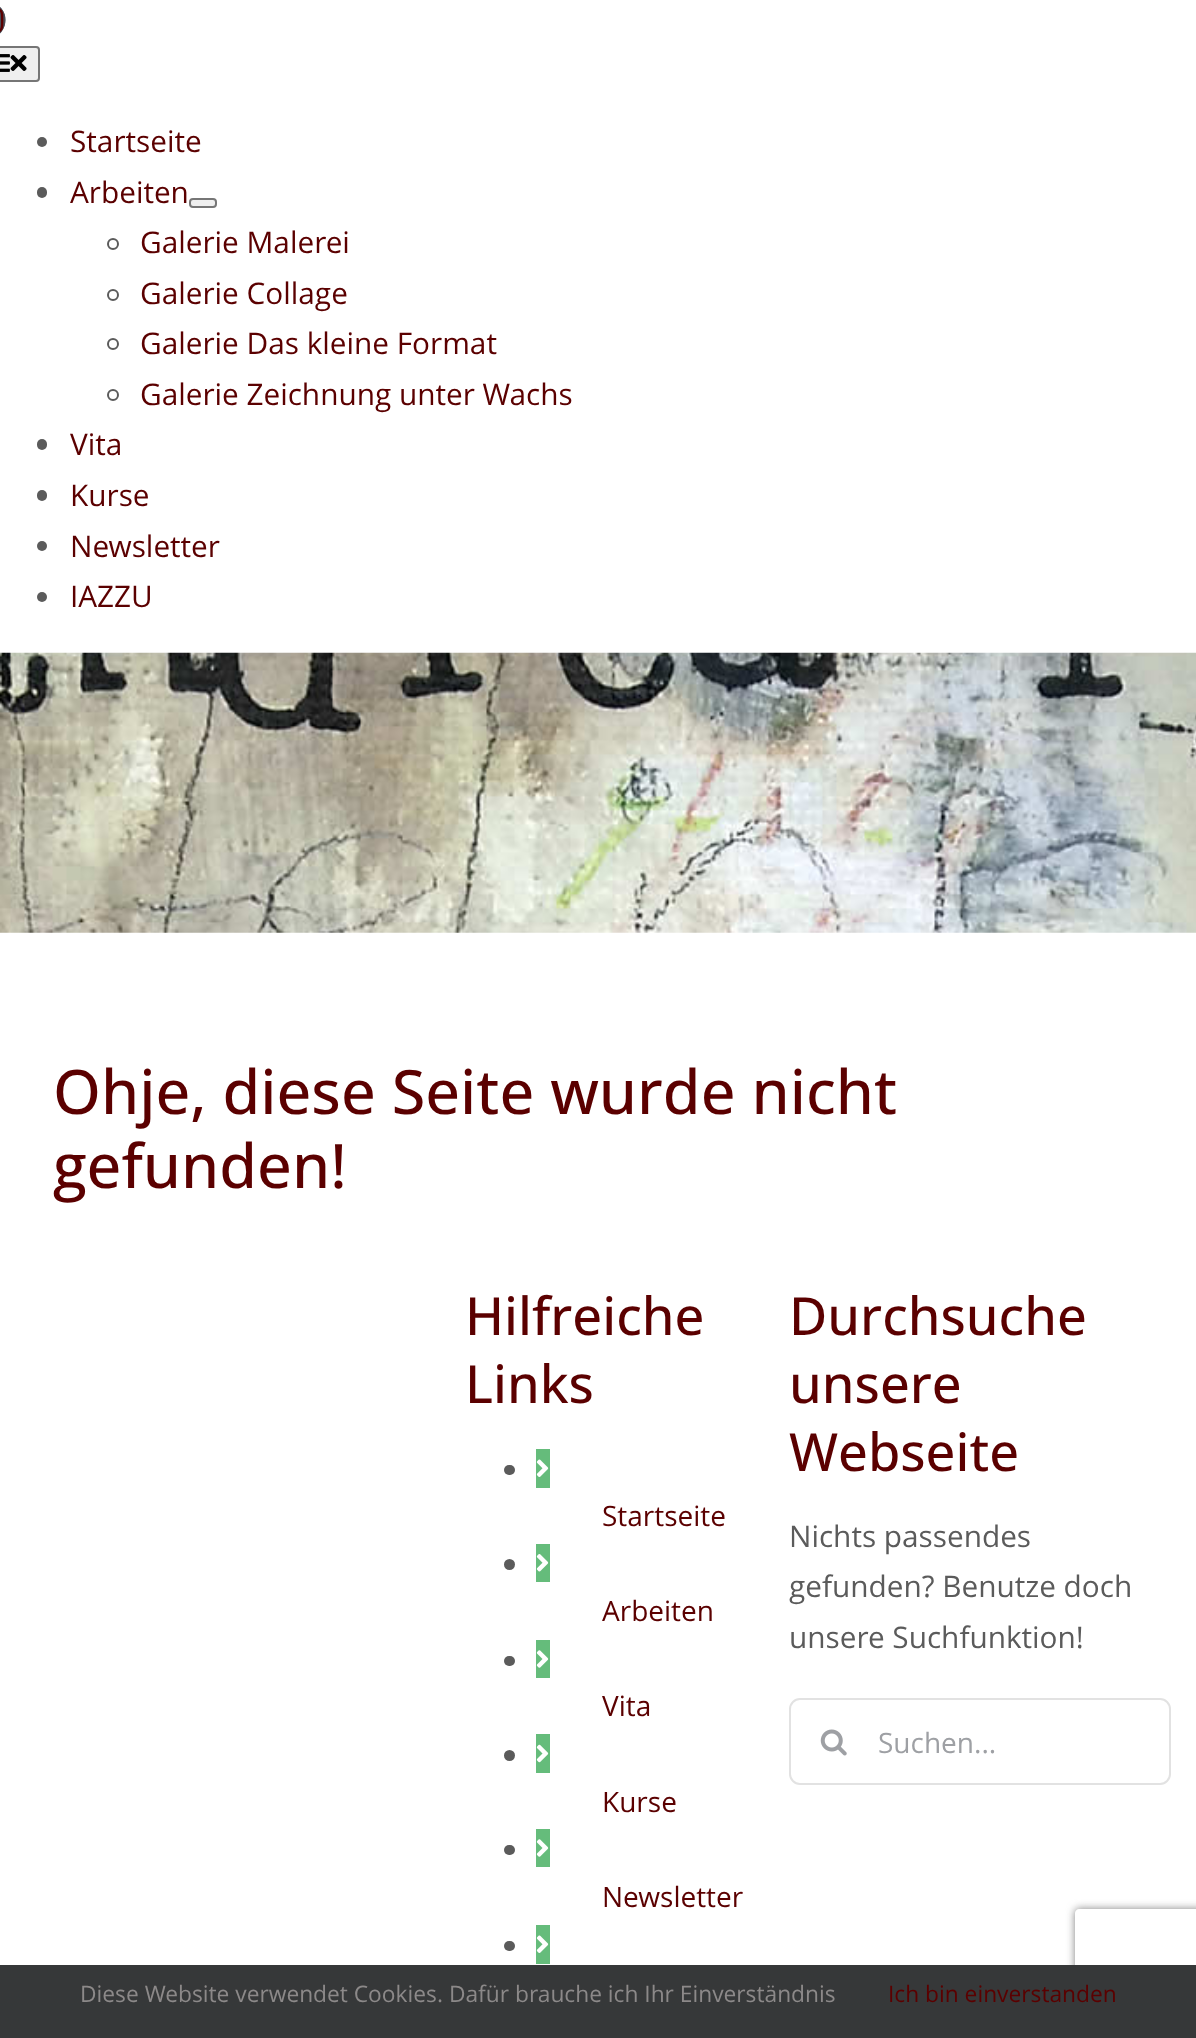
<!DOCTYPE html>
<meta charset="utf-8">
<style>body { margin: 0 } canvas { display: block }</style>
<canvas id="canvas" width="1196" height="2038"></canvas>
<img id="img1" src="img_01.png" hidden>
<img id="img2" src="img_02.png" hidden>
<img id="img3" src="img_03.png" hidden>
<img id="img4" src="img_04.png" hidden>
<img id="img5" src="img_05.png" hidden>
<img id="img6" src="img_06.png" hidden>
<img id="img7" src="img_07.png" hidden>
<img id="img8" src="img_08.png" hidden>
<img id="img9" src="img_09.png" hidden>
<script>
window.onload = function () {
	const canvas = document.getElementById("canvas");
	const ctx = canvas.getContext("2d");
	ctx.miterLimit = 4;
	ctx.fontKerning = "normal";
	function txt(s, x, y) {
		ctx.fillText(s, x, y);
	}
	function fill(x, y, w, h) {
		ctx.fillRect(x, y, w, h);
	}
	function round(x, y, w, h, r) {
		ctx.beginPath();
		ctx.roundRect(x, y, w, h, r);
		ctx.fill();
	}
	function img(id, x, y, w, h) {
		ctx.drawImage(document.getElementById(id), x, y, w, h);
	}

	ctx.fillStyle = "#FFFFFF";
	fill(0, 0, 1196, 2038);
	ctx.fillStyle = "#4A4E57";
	ctx.beginPath();
	ctx.ellipse(-9.5, 20, 15, 16.5, 0, 0, Math.PI * 2);
	ctx.fill();
	ctx.beginPath();
	ctx.moveTo(-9.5, 4.5);
	ctx.bezierCurveTo(9, 4.5, 9, 36, -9.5, 36);
	ctx.bezierCurveTo(-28, 36, -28, 4.5, -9.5, 4.5);
	ctx.closePath();
	ctx.strokeStyle = "#4A4E57";
	ctx.lineWidth = 1.8;
	ctx.stroke();
	img("img1", 0, 8, 4, 24);
	ctx.fillStyle = "#EFEFEF";
	ctx.beginPath();
	ctx.roundRect(0, 46, 40, 36, [0, 4, 4, 0]);
	ctx.fill();
	ctx.beginPath();
	ctx.roundRect(-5, 47, 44, 34, 3);
	ctx.strokeStyle = "#767676";
	ctx.lineWidth = 2;
	ctx.stroke();
	img("img2", 0, 54, 10, 18);
	img("img3", 10, 55, 17, 16);
	ctx.fillStyle = "#5B5B5B";
	ctx.beginPath();
	ctx.arc(42, 142, 5, 0, Math.PI * 2);
	ctx.fill();
	round(37, 187, 10, 11, 5);
	ctx.fillStyle = "#EFEFEF";
	ctx.beginPath();
	ctx.roundRect(190, 199, 26, 8, 3);
	ctx.fill();
	ctx.stroke();
	ctx.beginPath();
	ctx.arc(113, 244, 5, 0, Math.PI * 2);
	ctx.strokeStyle = "#5B5B5B";
	ctx.stroke();
	ctx.beginPath();
	ctx.arc(113, 295, 5, 0, Math.PI * 2);
	ctx.stroke();
	ctx.beginPath();
	ctx.arc(113, 344, 5, 0, Math.PI * 2);
	ctx.stroke();
	ctx.beginPath();
	ctx.arc(113, 395, 5, 0, Math.PI * 2);
	ctx.stroke();
	ctx.fillStyle = "#5B5B5B";
	round(37, 439, 10, 11, 5);
	round(37, 490, 10, 11, 5);
	ctx.beginPath();
	ctx.arc(42, 546, 5, 0, Math.PI * 2);
	ctx.fill();
	ctx.beginPath();
	ctx.arc(42, 597, 5, 0, Math.PI * 2);
	ctx.fill();
	img("img4", 0, 652, 1196, 281);
	round(504, 1465, 11, 10, 5);
	ctx.fillStyle = "#65BC7B";
	fill(536, 1449, 14, 39);
	img("img5", 536, 1459, 13, 18);
	ctx.fillStyle = "#5B5B5B";
	ctx.beginPath();
	ctx.arc(509.5, 1564.5, 5.5, 0, Math.PI * 2);
	ctx.fill();
	ctx.fillStyle = "#65BC7B";
	fill(536, 1544, 14, 38);
	img("img6", 536, 1554, 13, 18);
	ctx.fillStyle = "#5B5B5B";
	round(504, 1656, 11, 10, 5);
	ctx.fillStyle = "#65BC7B";
	fill(536, 1640, 14, 38);
	img("img7", 536, 1650, 13, 18);
	ctx.fillStyle = "#5B5B5B";
	ctx.beginPath();
	ctx.arc(509.5, 1755.5, 5.5, 0, Math.PI * 2);
	ctx.fill();
	ctx.fillStyle = "#65BC7B";
	fill(536, 1734, 14, 39);
	img("img8", 536, 1744, 13, 19);
	ctx.fillStyle = "#5B5B5B";
	round(504, 1845, 11, 10, 5);
	ctx.fillStyle = "#65BC7B";
	fill(536, 1829, 14, 38);
	img("img7", 536, 1839, 13, 18);
	ctx.fillStyle = "#5B5B5B";
	round(504, 1941, 11, 10, 5);
	ctx.fillStyle = "#65BC7B";
	fill(536, 1925, 14, 39);
	img("img5", 536, 1935, 13, 18);
	ctx.beginPath();
	ctx.roundRect(790, 1699, 380, 85, 10);
	ctx.strokeStyle = "#E2E2E2";
	ctx.stroke();
	img("img9", 820, 1729, 27, 27);
	ctx.save();
	ctx.beginPath();
	ctx.moveTo(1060, 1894);
	ctx.lineTo(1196, 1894);
	ctx.lineTo(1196, 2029);
	ctx.lineTo(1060, 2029);
	ctx.closePath();
	ctx.moveTo(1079, 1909);
	ctx.lineTo(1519, 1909);
	ctx.bezierCurveTo(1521, 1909, 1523, 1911, 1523, 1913);
	ctx.lineTo(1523, 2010);
	ctx.bezierCurveTo(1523, 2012, 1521, 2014, 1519, 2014);
	ctx.lineTo(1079, 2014);
	ctx.bezierCurveTo(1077, 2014, 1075, 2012, 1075, 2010);
	ctx.lineTo(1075, 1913);
	ctx.bezierCurveTo(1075, 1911, 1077, 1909, 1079, 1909);
	ctx.closePath();
	ctx.clip("evenodd");
	ctx.fillStyle = "#808080";
	ctx.filter = "blur(4.5px)";
	ctx.beginPath();
	ctx.roundRect(1075, 1909, 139, 105, 4);
	ctx.fill();
	ctx.filter = "none";
	ctx.restore();
	ctx.fillStyle = "#363839";
	fill(0, 1965, 1196, 73);
	ctx.font = "29.75px Open Sans";
	ctx.fillStyle = "#5B0000";
	txt("Startseite", 70, 152);
	txt("Arbeiten", 70, 203);
	txt("Galerie Malerei", 140, 253);
	txt("Galerie Collage", 140, 304);
	txt("Galerie Das kleine Format", 140, 354);
	txt("Galerie Zeichnung unter Wachs", 140, 405);
	txt("Vita", 70, 455);
	txt("Kurse", 70, 506);
	txt("Newsletter", 70, 557);
	txt("IAZZU", 70, 607);
	ctx.font = "500 61.25px Open Sans";
	txt("Ohje, diese Seite wurde nicht", 53, 1114);
	txt("gefunden!", 53, 1188);
	ctx.font = "500 52.5px Open Sans";
	txt("Hilfreiche", 465, 1335);
	txt("Links", 465, 1403);
	ctx.font = "28px Open Sans";
	txt("Startseite", 602, 1526);
	txt("Arbeiten", 602, 1621);
	txt("Vita", 602, 1716);
	txt("Kurse", 602, 1812);
	txt("Newsletter", 602, 1907);
	ctx.font = "500 52.5px Open Sans";
	txt("Durchsuche", 789, 1335);
	txt("unsere", 789, 1403);
	txt("Webseite", 789, 1471);
	ctx.font = "29.75px Open Sans";
	ctx.fillStyle = "#5B5B5B";
	txt("Nichts passendes", 789, 1547);
	txt("gefunden? Benutze doch", 789, 1597);
	txt("unsere Suchfunktion!", 789, 1648);
	ctx.font = "28px Open Sans";
	ctx.fillStyle = "#9EA0A4";
	txt("Suchen...", 878, 1753);
	ctx.font = "22.75px Open Sans";
	ctx.fillStyle = "#8C8989";
	txt("Diese Website verwendet Cookies. Dafür brauche ich Ihr Einverständnis", 80, 2002);
	ctx.fillStyle = "#5B0000";
	txt("Ich bin einverstanden", 888, 2002);
};
</script>
